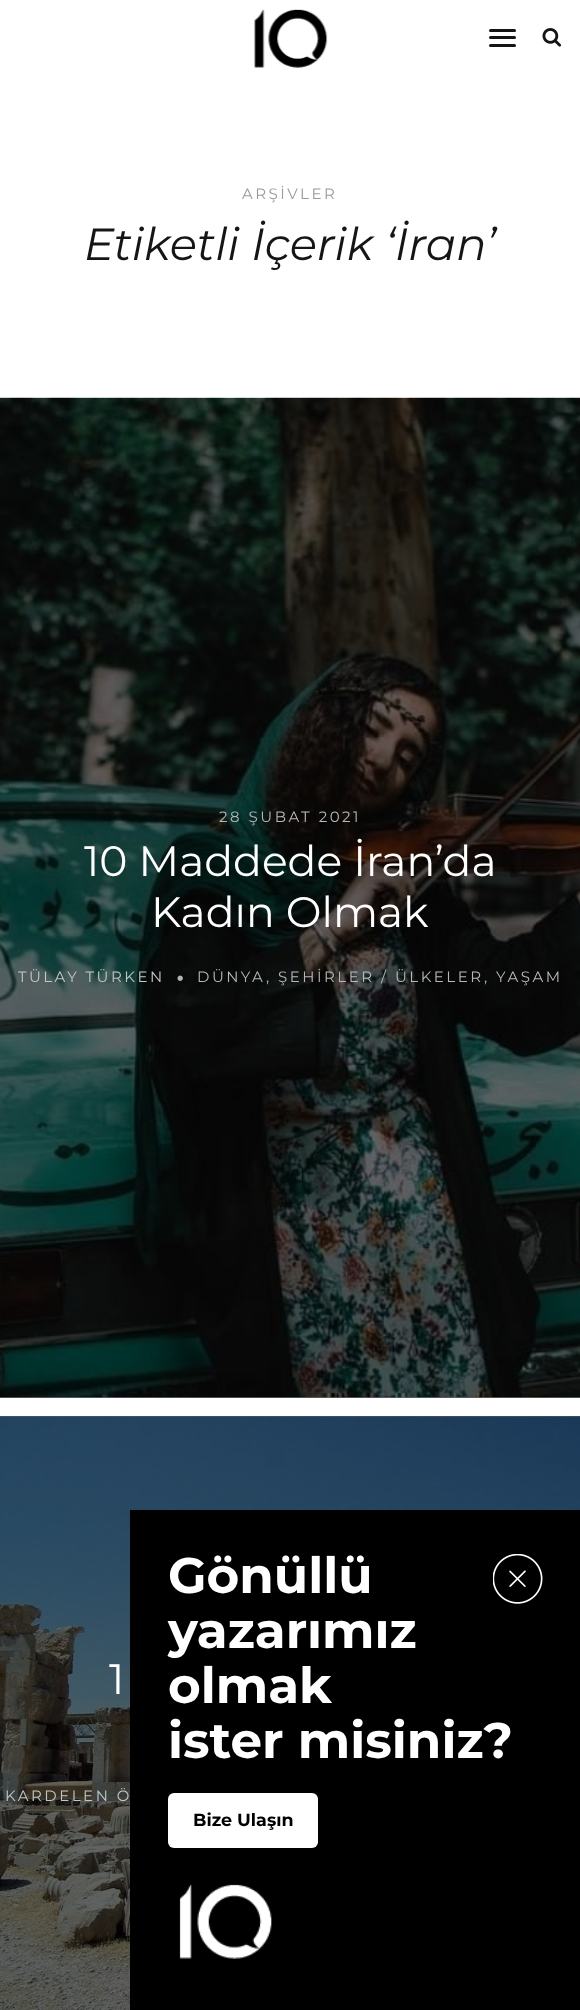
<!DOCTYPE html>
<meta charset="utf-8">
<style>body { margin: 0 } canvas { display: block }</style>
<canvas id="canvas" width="580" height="2010"></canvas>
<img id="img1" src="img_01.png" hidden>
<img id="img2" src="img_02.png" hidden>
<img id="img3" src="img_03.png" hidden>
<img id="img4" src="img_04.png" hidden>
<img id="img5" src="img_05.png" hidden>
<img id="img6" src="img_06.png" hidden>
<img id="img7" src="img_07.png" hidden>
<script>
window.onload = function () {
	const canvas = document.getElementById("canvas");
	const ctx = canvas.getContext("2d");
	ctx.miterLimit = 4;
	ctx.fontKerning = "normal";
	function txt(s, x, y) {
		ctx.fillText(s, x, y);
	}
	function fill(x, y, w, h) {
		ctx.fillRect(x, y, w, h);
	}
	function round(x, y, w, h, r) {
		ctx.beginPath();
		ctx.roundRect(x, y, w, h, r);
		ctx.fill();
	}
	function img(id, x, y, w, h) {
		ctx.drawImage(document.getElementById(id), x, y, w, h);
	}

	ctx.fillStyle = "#FFFFFF";
	fill(0, 0, 580, 2010);
	ctx.fillStyle = "#666666";
	fill(0, 1416, 580, 1);
	fill(0, 1397, 580, 1);
	img("img1", 254, 9, 74, 59);
	ctx.fillStyle = "#151515";
	round(489, 29, 27, 3, 1.5);
	round(489, 36, 27, 3, 1.5);
	round(489, 44, 27, 3, 1.5);
	img("img2", 542, 28, 20, 19);
	img("img3", 0, 397, 580, 1001);
	img("img4", 177, 975, 6, 6);
	img("img5", 0, 1416, 580, 594);
	ctx.fillStyle = "#000000";
	fill(130, 1510, 450, 500);
	img("img6", 493, 1554, 50, 50);
	ctx.fillStyle = "#FFFFFF";
	round(168, 1793, 150, 55, 6);
	img("img7", 179, 1884, 93, 75);
	ctx.letterSpacing = "2.5px";
	ctx.font = "100 15px Montserrat";
	ctx.fillStyle = "#999999";
	txt("ARŞİVLER", 242, 199);
	ctx.letterSpacing = "0px";
	ctx.font = "italic 100 45px Montserrat";
	ctx.fillStyle = "#151515";
	txt("Etiketli İçerik ‘İran’", 84, 260);
	ctx.letterSpacing = "2.5px";
	ctx.font = "100 15px Montserrat";
	ctx.fillStyle = "#B6B9B8";
	txt("28 ŞUBAT 2021", 219, 822);
	ctx.letterSpacing = "0px";
	ctx.font = "100 42.5px Montserrat";
	ctx.fillStyle = "#FFFFFF";
	txt("10 Maddede İran’da", 84, 876);
	txt("Kadın Olmak", 151, 927);
	ctx.letterSpacing = "2.5px";
	ctx.font = "100 15px Montserrat";
	ctx.fillStyle = "#C0C7C6";
	txt("TÜLAY TÜRKEN", 18, 982);
	ctx.fillStyle = "#B6B9B8";
	txt("DÜNYA", 197, 982);
	txt("ŞEHİRLER / ÜLKELER", 278, 982);
	txt(", YAŞAM", 484, 982);
	txt(",", 266, 982);
	ctx.letterSpacing = "0px";
	ctx.font = "100 42.5px Montserrat";
	ctx.fillStyle = "#FFFFFF";
	txt("1", 109, 1694);
	ctx.letterSpacing = "2.5px";
	ctx.font = "100 15px Montserrat";
	ctx.fillStyle = "#C0C7C6";
	txt("KARDELEN Ö", 5, 1801);
	ctx.letterSpacing = "0px";
	ctx.font = "100 50px 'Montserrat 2'";
	ctx.fillStyle = "#FFFFFF";
	txt("Gönüllü", 168, 1593);
	txt("yazarımız", 168, 1648);
	txt("olmak", 168, 1703);
	txt("ister misiniz?", 168, 1758);
	ctx.font = "100 17.5px 'Montserrat 2'";
	ctx.fillStyle = "#000000";
	txt("Bize Ulaşın", 193, 1826);
};
</script>
